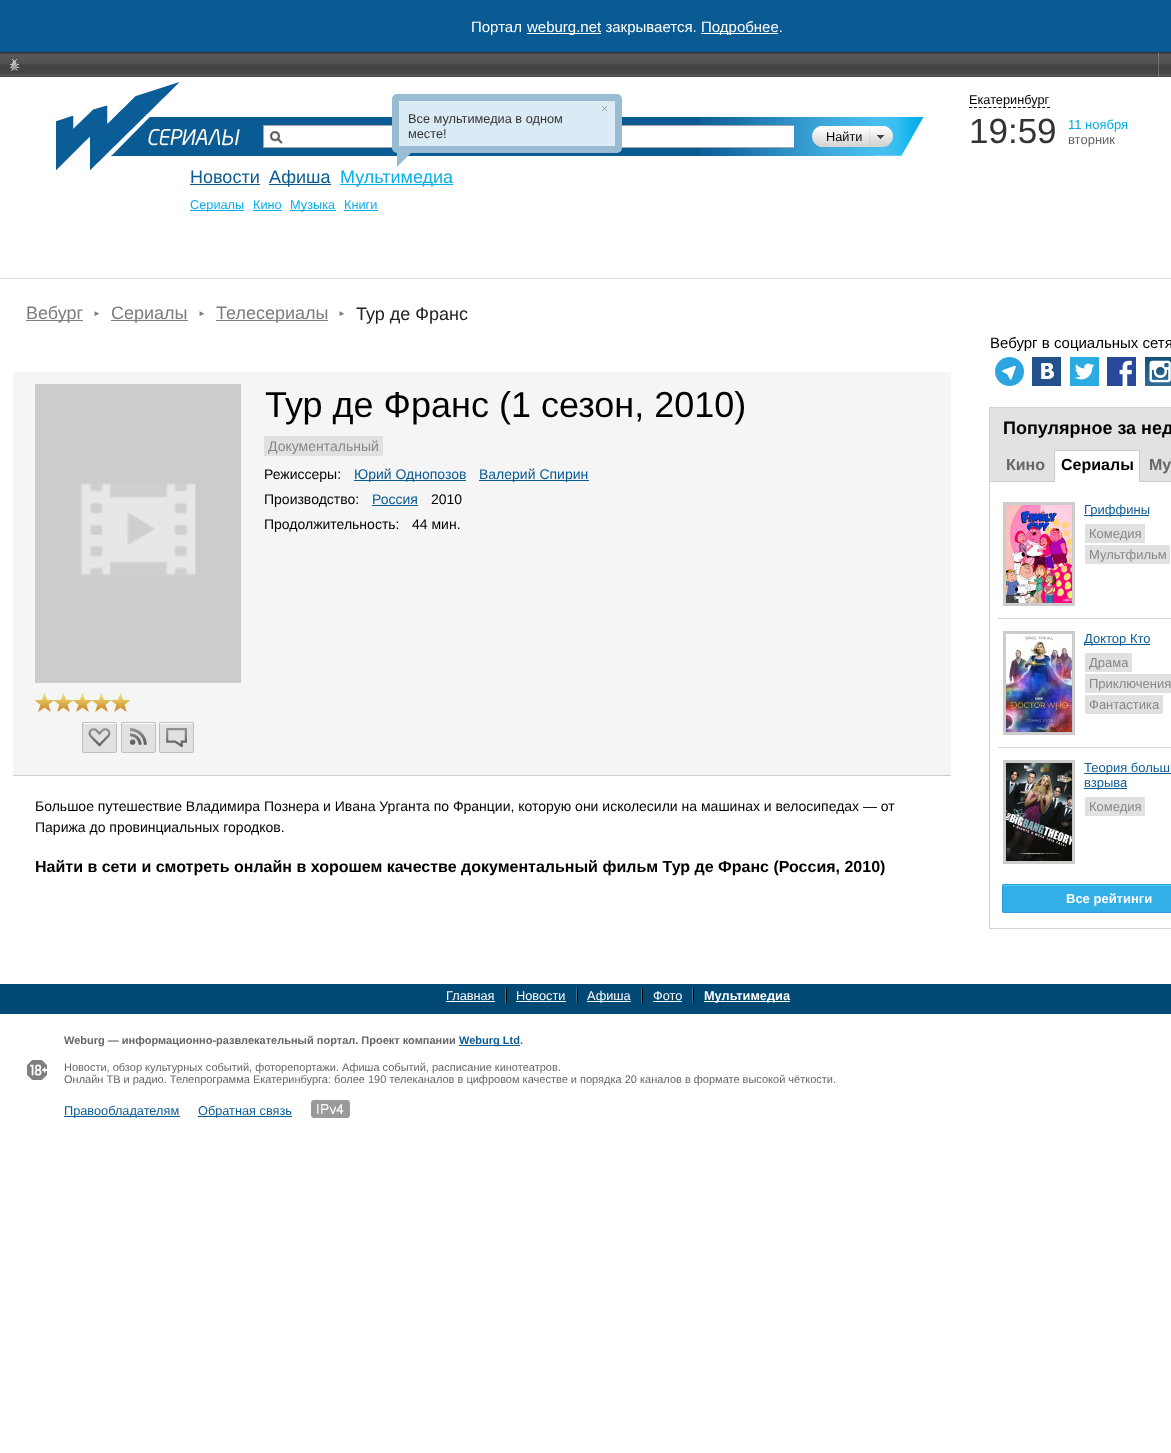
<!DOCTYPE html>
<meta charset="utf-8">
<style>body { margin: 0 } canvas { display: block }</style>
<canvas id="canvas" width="1171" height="1453"></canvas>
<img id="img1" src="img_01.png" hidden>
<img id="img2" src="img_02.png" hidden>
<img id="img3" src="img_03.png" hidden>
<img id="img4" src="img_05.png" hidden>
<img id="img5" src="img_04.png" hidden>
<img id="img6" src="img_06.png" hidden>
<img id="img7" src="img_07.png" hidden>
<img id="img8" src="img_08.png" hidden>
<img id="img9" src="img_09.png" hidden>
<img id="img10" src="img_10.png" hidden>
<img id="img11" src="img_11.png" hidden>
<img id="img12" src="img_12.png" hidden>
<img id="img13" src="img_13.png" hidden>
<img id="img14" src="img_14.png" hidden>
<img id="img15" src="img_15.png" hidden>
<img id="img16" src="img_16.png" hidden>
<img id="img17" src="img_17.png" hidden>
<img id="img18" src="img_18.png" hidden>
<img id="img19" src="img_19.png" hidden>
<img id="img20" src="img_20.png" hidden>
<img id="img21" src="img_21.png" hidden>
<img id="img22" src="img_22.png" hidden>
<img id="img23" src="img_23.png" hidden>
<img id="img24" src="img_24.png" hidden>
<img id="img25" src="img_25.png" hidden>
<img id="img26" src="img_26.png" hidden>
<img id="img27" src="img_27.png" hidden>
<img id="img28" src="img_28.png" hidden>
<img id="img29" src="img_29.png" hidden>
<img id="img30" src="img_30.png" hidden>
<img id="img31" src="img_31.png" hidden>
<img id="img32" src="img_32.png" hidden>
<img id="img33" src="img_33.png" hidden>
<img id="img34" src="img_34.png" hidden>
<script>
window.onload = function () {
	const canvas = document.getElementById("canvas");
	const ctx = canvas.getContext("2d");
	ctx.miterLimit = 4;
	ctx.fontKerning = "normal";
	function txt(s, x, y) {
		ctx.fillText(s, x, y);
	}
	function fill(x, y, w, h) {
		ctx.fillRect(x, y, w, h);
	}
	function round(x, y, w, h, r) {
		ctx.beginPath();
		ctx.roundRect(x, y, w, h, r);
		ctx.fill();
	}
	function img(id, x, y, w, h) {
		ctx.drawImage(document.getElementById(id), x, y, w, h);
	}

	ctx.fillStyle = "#FFFFFF";
	fill(0, 0, 1171, 1453);
	ctx.fillStyle = "#0A5B94";
	fill(0, 0, 1171, 52);
	ctx.fillStyle = "#FFFFFF";
	fill(527, 33, 74, 1);
	fill(701, 33, 77, 1);
	img("img1", 0, 52, 1171, 25);
	img("img2", 10, 59, 9, 12);
	img("img3", 1157, 52, 2, 25);
	ctx.fillStyle = "#DDDDDD";
	fill(0, 278, 1171, 1);
	ctx.beginPath();
	ctx.moveTo(969, 107.5);
	ctx.lineTo(1050, 107.5);
	ctx.strokeStyle = "#000000";
	ctx.setLineDash([3, 1.88]);
	ctx.stroke();
	img("img4", 111, 117, 144, 39);
	img("img5", 56, 82, 124, 88);
	ctx.fillStyle = "#0A5B94";
	fill(255, 117, 445, 39);
	img("img6", 700, 117, 94, 39);
	ctx.fillStyle = "#FFFFFF";
	fill(264, 126, 530, 21);
	img("img7", 270, 131, 13, 13);
	ctx.strokeStyle = "#A6A6A6";
	ctx.setLineDash([]);
	ctx.strokeRect(263.5, 125.5, 546, 22);
	img("img8", 794, 117, 130, 39);
	img("img9", 812, 126, 8, 21);
	img("img10", 820, 126, 49, 21);
	img("img11", 869, 126, 24, 21);
	img("img12", 877, 135, 7, 4);
	ctx.fillStyle = "#0A5B94";
	fill(190, 184, 70, 1);
	fill(269, 184, 62, 1);
	ctx.fillStyle = "#08AEE7";
	fill(340, 184, 113, 1);
	fill(190, 210, 54, 1);
	fill(253, 210, 29, 1);
	fill(290, 210, 46, 1);
	fill(344, 210, 34, 1);
	ctx.fillStyle = "#7D7D7D";
	fill(26, 320, 57, 1);
	fill(111, 320, 77, 1);
	fill(216, 320, 112, 1);
	ctx.fillStyle = "#F5F5F5";
	fill(13, 372, 938, 403);
	ctx.fillStyle = "#CCCCCC";
	fill(35, 384, 206, 299);
	img("img13", 80, 483, 116, 93);
	img("img14", 35, 693, 19, 19);
	img("img14", 54, 693, 19, 19);
	img("img14", 73, 693, 19, 19);
	img("img14", 92, 693, 19, 19);
	img("img14", 111, 693, 19, 19);
	ctx.fillStyle = "#E0E1E1";
	round(82, 722, 35, 31, 2);
	ctx.fillStyle = "#FFFFFF";
	ctx.beginPath();
	ctx.moveTo(84, 724);
	ctx.lineTo(115, 724);
	ctx.bezierCurveTo(116, 724, 116, 724, 116, 725);
	ctx.bezierCurveTo(116, 721.5, 113.5, 723, 110, 723);
	ctx.lineTo(89, 723);
	ctx.bezierCurveTo(85.5, 723, 83, 721.5, 83, 725);
	ctx.bezierCurveTo(83, 724, 83, 724, 84, 724);
	ctx.closePath();
	ctx.fill();
	ctx.beginPath();
	ctx.roundRect(82.5, 722.5, 34, 30, 1.5);
	ctx.strokeStyle = "#BFBFBF";
	ctx.stroke();
	img("img15", 88, 728, 23, 19);
	ctx.fillStyle = "#E0E1E1";
	round(121, 722, 35, 31, 2);
	ctx.fillStyle = "#FFFFFF";
	ctx.beginPath();
	ctx.moveTo(123, 724);
	ctx.lineTo(154, 724);
	ctx.bezierCurveTo(155, 724, 155, 724, 155, 725);
	ctx.bezierCurveTo(155, 721.5, 152.5, 723, 149, 723);
	ctx.lineTo(128, 723);
	ctx.bezierCurveTo(124.5, 723, 122, 721.5, 122, 725);
	ctx.bezierCurveTo(122, 724, 122, 724, 123, 724);
	ctx.closePath();
	ctx.fill();
	ctx.beginPath();
	ctx.roundRect(121.5, 722.5, 34, 30, 1.5);
	ctx.stroke();
	img("img16", 130, 728, 17, 17);
	ctx.fillStyle = "#E0E1E1";
	round(159, 722, 35, 31, 2);
	ctx.fillStyle = "#FFFFFF";
	ctx.beginPath();
	ctx.moveTo(161, 724);
	ctx.lineTo(192, 724);
	ctx.bezierCurveTo(193, 724, 193, 724, 193, 725);
	ctx.bezierCurveTo(193, 721.5, 190.5, 723, 187, 723);
	ctx.lineTo(166, 723);
	ctx.bezierCurveTo(162.5, 723, 160, 721.5, 160, 725);
	ctx.bezierCurveTo(160, 724, 160, 724, 161, 724);
	ctx.closePath();
	ctx.fill();
	ctx.beginPath();
	ctx.roundRect(159.5, 722.5, 34, 30, 1.5);
	ctx.stroke();
	img("img17", 166, 728, 21, 19);
	ctx.fillStyle = "#E1E1E1";
	fill(264, 436, 119, 20);
	ctx.fillStyle = "#0A5B94";
	fill(354, 480, 112, 1);
	fill(479, 480, 110, 1);
	fill(372, 505, 46, 1);
	ctx.fillStyle = "#CACED1";
	fill(13, 775, 938, 1);
	img("img18", 995, 357, 29, 29);
	img("img19", 1032, 357, 29, 29);
	img("img20", 1070, 357, 29, 29);
	img("img21", 1107, 357, 29, 29);
	img("img22", 1145, 357, 26, 29);
	ctx.strokeStyle = "#D5D5D5";
	ctx.strokeRect(989.5, 407.5, 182, 521);
	ctx.fillStyle = "#E2E2E2";
	fill(990, 408, 181, 73);
	ctx.fillStyle = "#CACED1";
	fill(1054, 450, 86, 1);
	fill(990, 481, 181, 1);
	fill(1139, 450, 1, 32);
	fill(1054, 450, 1, 32);
	ctx.fillStyle = "#FFFFFF";
	fill(1055, 451, 84, 31);
	ctx.fillStyle = "#CCCCCC";
	fill(1003, 502, 72, 104);
	img("img23", 1006, 505, 66, 98);
	ctx.fillStyle = "#0A5B94";
	fill(1084, 515, 65, 1);
	ctx.fillStyle = "#E1E1E1";
	fill(1085, 524, 60, 19);
	fill(1085, 545, 85, 19);
	ctx.fillStyle = "#D3DADF";
	fill(998, 618, 173, 1);
	ctx.fillStyle = "#CCCCCC";
	fill(1003, 631, 72, 104);
	img("img24", 1006, 634, 66, 98);
	ctx.fillStyle = "#0A5B94";
	fill(1084, 644, 66, 1);
	ctx.fillStyle = "#E1E1E1";
	fill(1085, 653, 47, 19);
	fill(1085, 674, 86, 19);
	fill(1085, 695, 78, 19);
	ctx.fillStyle = "#D3DADF";
	fill(998, 747, 173, 1);
	ctx.fillStyle = "#CCCCCC";
	fill(1003, 760, 72, 104);
	img("img25", 1006, 763, 66, 98);
	ctx.fillStyle = "#0A5B94";
	fill(1084, 773, 87, 1);
	fill(1084, 788, 43, 1);
	ctx.fillStyle = "#E1E1E1";
	fill(1085, 797, 60, 19);
	ctx.fillStyle = "#33AFE8";
	round(1002, 884, 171, 29, 2);
	ctx.fillStyle = "#4ECFFF";
	ctx.beginPath();
	ctx.moveTo(1004, 886);
	ctx.lineTo(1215, 886);
	ctx.lineTo(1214, 885);
	ctx.lineTo(1004, 885);
	ctx.bezierCurveTo(1003, 885, 1003, 886, 1003, 887);
	ctx.closePath();
	ctx.moveTo(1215, 911);
	ctx.lineTo(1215, 912);
	ctx.closePath();
	ctx.fill("evenodd");
	ctx.beginPath();
	ctx.roundRect(1002.5, 884.5, 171, 28, 1.5);
	ctx.strokeStyle = "#3399DD";
	ctx.stroke();
	img("img26", 392, 94, 5, 5);
	ctx.fillStyle = "#99BCD2";
	fill(397, 94, 220, 5);
	img("img27", 617, 94, 5, 5);
	ctx.fillStyle = "#DAEBF5";
	fill(399, 101, 216, 45);
	ctx.fillStyle = "#99BCD2";
	fill(392, 99, 230, 2);
	fill(615, 99, 7, 49);
	fill(392, 146, 230, 2);
	fill(392, 99, 7, 49);
	img("img28", 602, 106, 5, 5);
	img("img29", 392, 148, 5, 5);
	fill(397, 148, 220, 5);
	img("img30", 617, 148, 5, 5);
	img("img31", 397, 153, 14, 14);
	ctx.fillStyle = "#014975";
	fill(0, 984, 1171, 30);
	ctx.fillStyle = "#FFFFFF";
	fill(446, 1001, 49, 1);
	img("img32", 505, 988, 2, 15);
	fill(516, 1001, 50, 1);
	img("img32", 576, 988, 2, 15);
	fill(587, 1001, 44, 1);
	img("img32", 641, 988, 2, 15);
	fill(653, 1001, 29, 1);
	img("img32", 692, 988, 2, 15);
	fill(704, 1001, 86, 1);
	img("img33", 27, 1060, 20, 20);
	ctx.fillStyle = "#0A5B94";
	fill(459, 1045, 61, 1);
	fill(64, 1116, 116, 1);
	fill(198, 1116, 94, 1);
	img("img34", 311, 1100, 39, 18);
	ctx.font = "15px Liberation Sans";
	ctx.fillStyle = "#FFFFFF";
	txt("Портал", 471, 32);
	txt("weburg.net закрывается.", 527, 32);
	txt("Подробнее.", 701, 32);
	ctx.font = "12.75px Liberation Sans";
	ctx.fillStyle = "#000000";
	txt("Екатеринбург", 969, 104);
	ctx.font = "35px Liberation Sans";
	ctx.fillStyle = "#333333";
	txt("19:59", 969, 143);
	ctx.font = "13px Liberation Sans";
	ctx.fillStyle = "#02ABE5";
	txt("11 ноября", 1068, 129);
	ctx.fillStyle = "#666666";
	txt("вторник", 1068, 144);
	ctx.font = "12.75px Liberation Sans";
	ctx.fillStyle = "#000000";
	txt("Найти", 826, 141);
	ctx.font = "18px Liberation Sans";
	ctx.fillStyle = "#0A5B94";
	txt("Новости", 190, 183);
	txt("Афиша", 269, 183);
	ctx.fillStyle = "#08AEE7";
	txt("Мультимедиа", 340, 183);
	ctx.font = "12.75px Liberation Sans";
	txt("Cериалы", 190, 209);
	txt("Кино", 253, 209);
	txt("Музыка", 290, 209);
	txt("Книги", 344, 209);
	ctx.font = "18px Liberation Sans";
	ctx.fillStyle = "#7D7D7D";
	txt("Вебург", 26, 319);
	ctx.font = "8px Liberation Serif";
	txt("►", 93, 316);
	ctx.font = "18px Liberation Sans";
	txt("Сериалы", 111, 319);
	ctx.font = "8px Liberation Serif";
	txt("►", 198, 316);
	ctx.font = "18px Liberation Sans";
	txt("Телесериалы", 216, 319);
	ctx.font = "8px Liberation Serif";
	txt("►", 338, 316);
	ctx.font = "18px Liberation Sans";
	ctx.fillStyle = "#222222";
	txt("Тур де Франс", 356, 320);
	ctx.font = "36px Liberation Sans";
	ctx.fillStyle = "#000000";
	txt("Тур де Франс (1 сезон, 2010)", 265, 417);
	ctx.font = "14px Liberation Sans";
	ctx.fillStyle = "#878787";
	txt("Документальный", 268, 451);
	ctx.fillStyle = "#000000";
	txt("Режиссеры:", 264, 479);
	ctx.fillStyle = "#0A5B94";
	txt("Юрий Однопозов", 354, 479);
	txt("Валерий Спирин", 479, 479);
	ctx.fillStyle = "#000000";
	txt("Производство:", 264, 504);
	ctx.fillStyle = "#0A5B94";
	txt("Россия", 372, 504);
	ctx.fillStyle = "#000000";
	txt("2010", 431, 504);
	txt("Продолжительность:", 264, 529);
	txt("44 мин.", 412, 529);
	txt("Большое путешествие Владимира Познера и Ивана Урганта по Франции, которую они исколесили на машинах и велосипедах — от", 35, 811);
	txt("Парижа до провинциальных городков.", 35, 832);
	ctx.font = "bold 16px Liberation Sans";
	txt("Найти в сети и смотреть онлайн в хорошем качестве документальный фильм Тур де Франс (Россия, 2010)", 35, 872);
	ctx.font = "15px Liberation Sans";
	txt("Вебург в социальных сетя", 990, 348);
	ctx.font = "bold 18px Liberation Sans";
	txt("Популярное за нед", 1003, 434);
	ctx.font = "bold 16px Liberation Sans";
	ctx.fillStyle = "#666666";
	txt("Кино", 1006, 470);
	ctx.fillStyle = "#000000";
	txt("Сериалы", 1061, 470);
	ctx.fillStyle = "#666666";
	txt("Му", 1149, 470);
	ctx.font = "13px Liberation Sans";
	ctx.fillStyle = "#0A5B94";
	txt("Гриффины", 1084, 514);
	ctx.fillStyle = "#878787";
	txt("Комедия", 1089, 538);
	txt("Мультфильм", 1089, 559);
	ctx.save();
	ctx.beginPath();
	ctx.rect(1084, 631, 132, 84);
	ctx.clip();
	ctx.fillStyle = "#0A5B94";
	txt("Доктор Кто", 1084, 643);
	ctx.restore();
	txt("Драма", 1089, 667);
	txt("Приключения", 1089, 688);
	txt("Фантастика", 1089, 709);
	ctx.fillStyle = "#0A5B94";
	txt("Теория больш", 1084, 772);
	txt("взрыва", 1084, 787);
	ctx.fillStyle = "#878787";
	txt("Комедия", 1089, 811);
	ctx.font = "bold 13px Liberation Sans";
	ctx.fillStyle = "#FFFFFF";
	txt("Все рейтинги", 1066, 903);
	ctx.font = "12.75px Liberation Sans";
	ctx.fillStyle = "#333333";
	txt("Все мультимедиа в одном", 408, 123);
	txt("месте!", 408, 138);
	ctx.fillStyle = "#FFFFFF";
	txt("Главная", 446, 1000);
	txt("Новости", 516, 1000);
	txt("Афиша", 587, 1000);
	txt("Фото", 653, 1000);
	ctx.font = "bold 12.75px Liberation Sans";
	txt("Мультимедиа", 704, 1000);
	ctx.font = "bold 11px Liberation Sans";
	ctx.fillStyle = "#666666";
	txt("Weburg — информационно-развлекательный портал. Проект компании", 64, 1044);
	ctx.fillStyle = "#0A5B94";
	txt("Weburg Ltd", 459, 1044);
	ctx.fillStyle = "#666666";
	txt(".", 520, 1044);
	ctx.font = "11px Liberation Sans";
	txt("Новости, обзор культурных событий, фоторепортажи. Афиша событий, расписание кинотеатров.", 64, 1071);
	txt("Онлайн ТВ и радио. Телепрограмма Екатеринбурга: более 190 телеканалов в цифровом качестве и порядка 20 каналов в формате высокой чёткости.", 64, 1083);
	ctx.font = "12.75px Liberation Sans";
	ctx.fillStyle = "#0A5B94";
	txt("Правообладателям", 64, 1115);
	txt("Обратная связь", 198, 1115);
};
</script>
